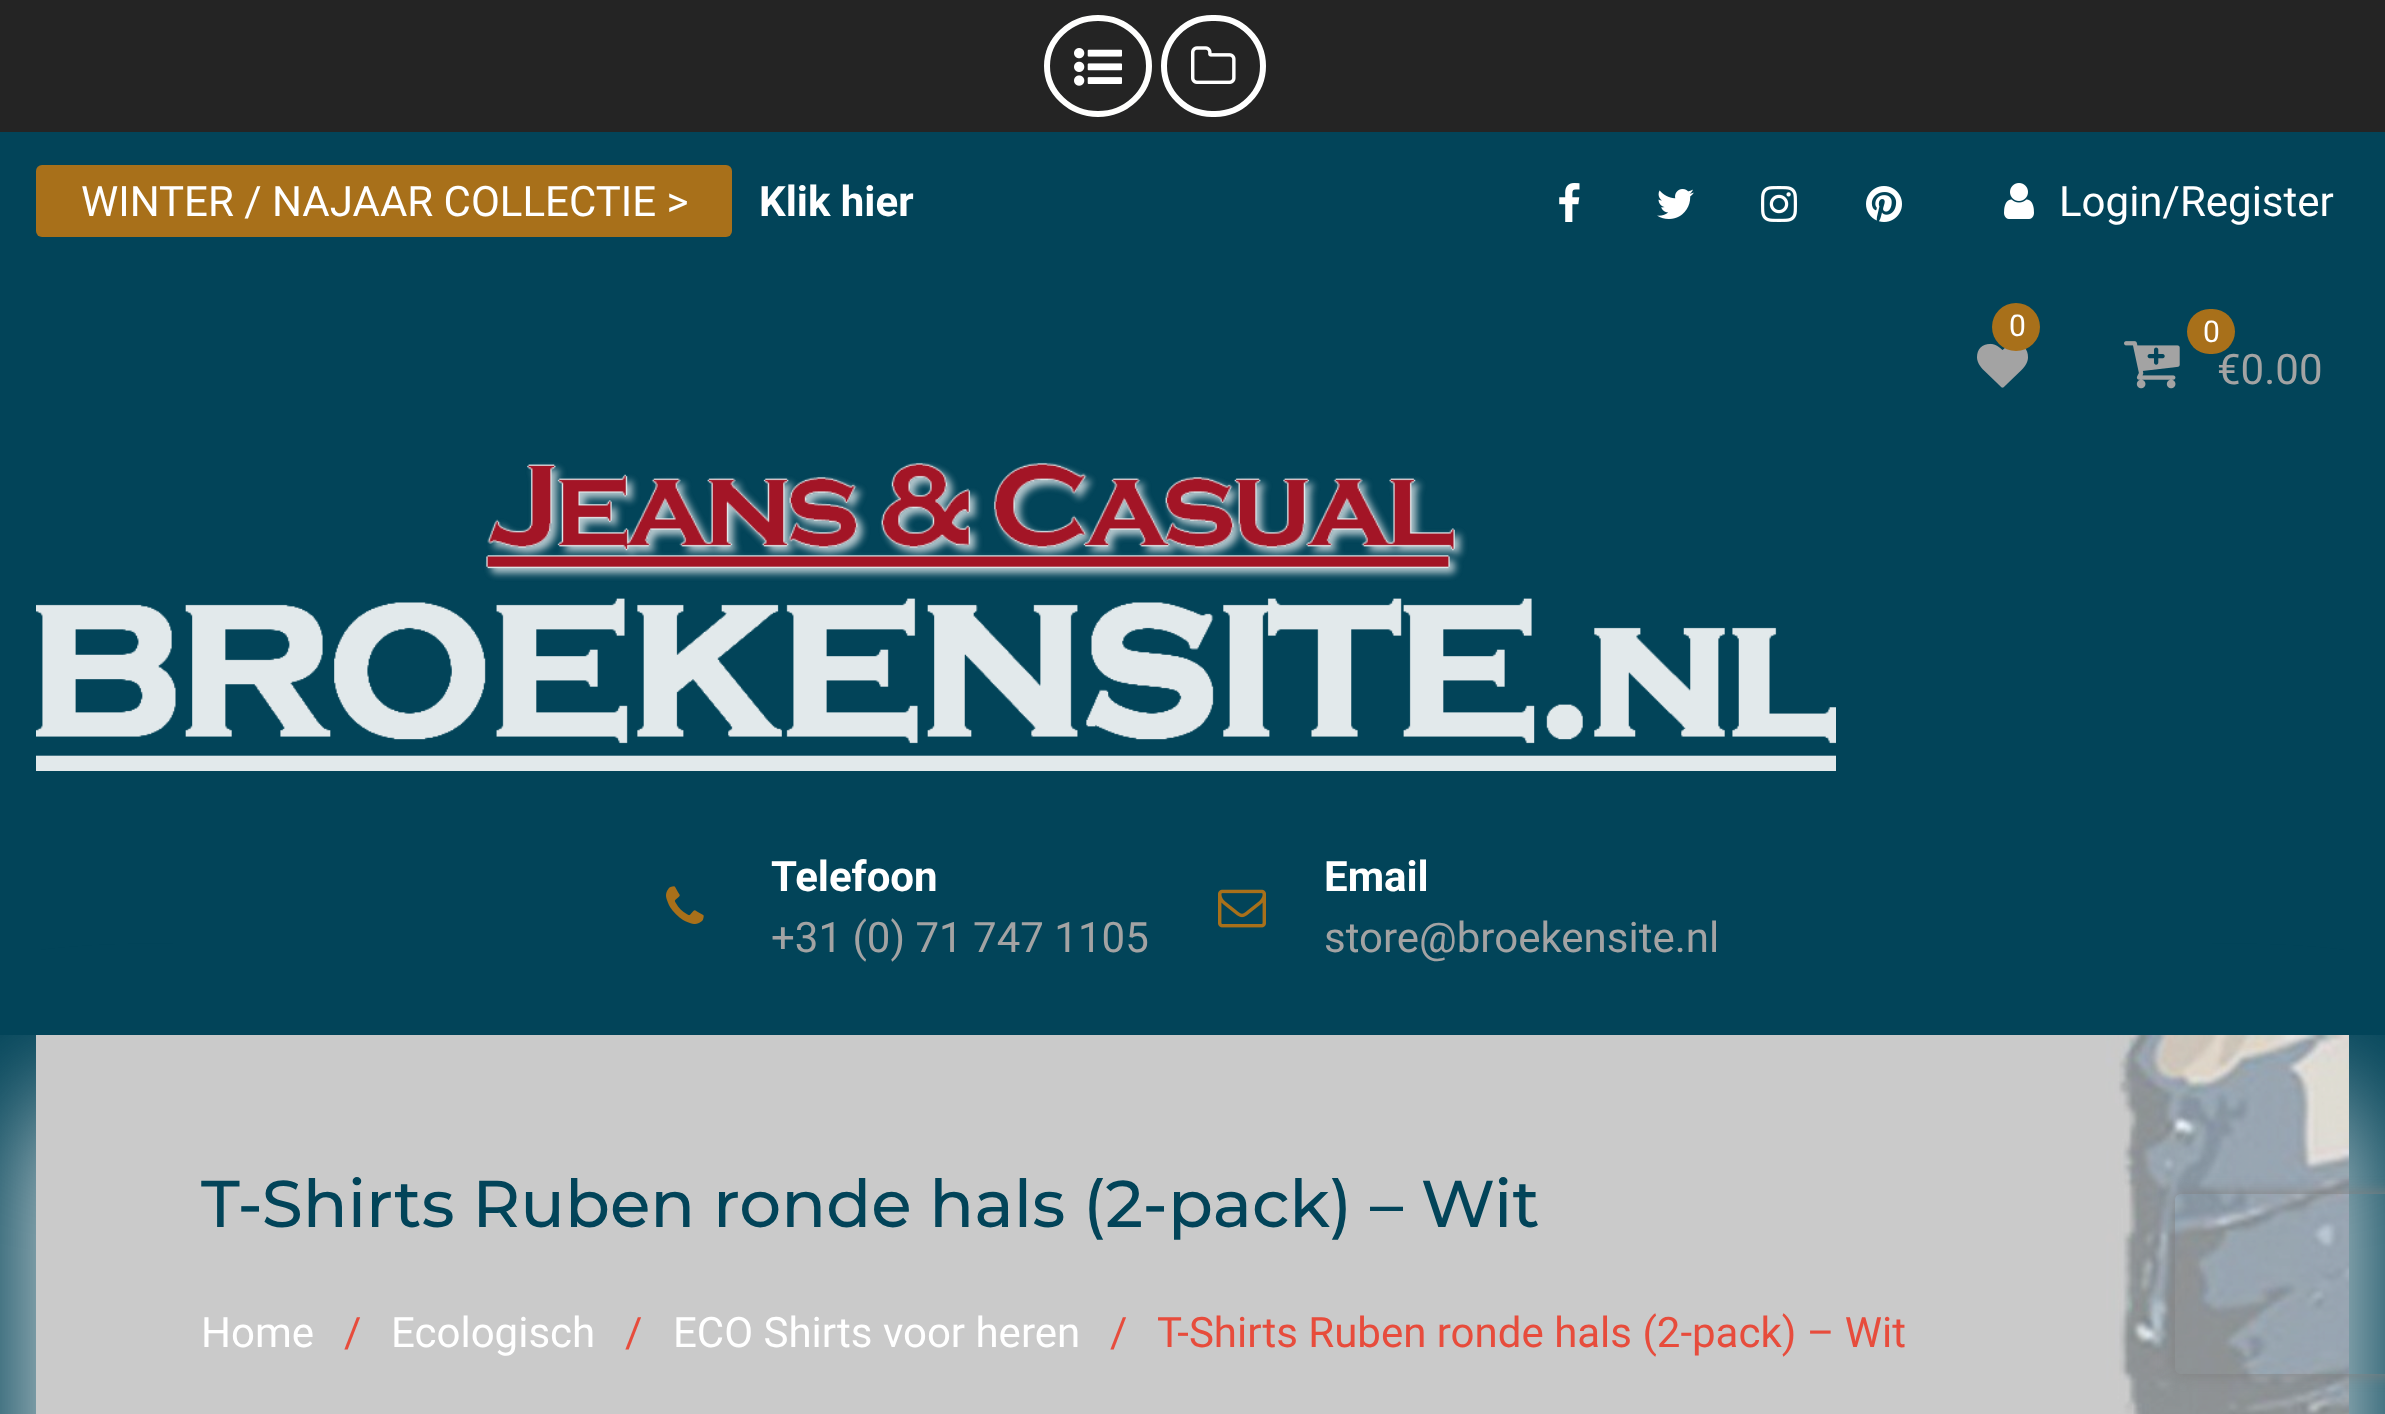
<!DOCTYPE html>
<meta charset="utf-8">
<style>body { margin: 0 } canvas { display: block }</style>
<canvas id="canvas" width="2385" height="1414"></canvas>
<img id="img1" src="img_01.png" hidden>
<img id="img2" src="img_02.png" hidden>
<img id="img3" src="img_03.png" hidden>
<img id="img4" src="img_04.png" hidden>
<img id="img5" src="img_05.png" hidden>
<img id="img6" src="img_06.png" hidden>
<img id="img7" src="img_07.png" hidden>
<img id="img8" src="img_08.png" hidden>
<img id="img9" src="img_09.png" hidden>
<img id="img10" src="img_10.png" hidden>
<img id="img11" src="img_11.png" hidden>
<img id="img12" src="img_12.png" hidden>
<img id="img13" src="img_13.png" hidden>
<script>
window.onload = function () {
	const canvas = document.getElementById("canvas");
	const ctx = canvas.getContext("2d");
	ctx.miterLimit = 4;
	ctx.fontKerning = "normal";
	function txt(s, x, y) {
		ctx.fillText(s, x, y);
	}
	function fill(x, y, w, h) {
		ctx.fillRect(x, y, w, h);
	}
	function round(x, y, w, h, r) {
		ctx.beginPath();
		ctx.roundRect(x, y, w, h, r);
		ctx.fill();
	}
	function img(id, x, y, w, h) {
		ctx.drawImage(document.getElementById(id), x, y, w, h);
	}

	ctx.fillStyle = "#024459";
	fill(0, 0, 2385, 1414);
	ctx.fillStyle = "#242424";
	fill(0, 0, 2385, 132);
	ctx.beginPath();
	ctx.moveTo(1098, 18);
	ctx.bezierCurveTo(1126, 18, 1149, 39.5, 1149, 66);
	ctx.bezierCurveTo(1149, 92.5, 1126, 114, 1098, 114);
	ctx.bezierCurveTo(1070, 114, 1047, 92.5, 1047, 66);
	ctx.bezierCurveTo(1047, 39.5, 1070, 18, 1098, 18);
	ctx.closePath();
	ctx.strokeStyle = "#FFFFFE";
	ctx.lineWidth = 6;
	ctx.stroke();
	img("img1", 1074, 48, 48, 38);
	ctx.beginPath();
	ctx.roundRect(1164, 18, 99, 96, 48);
	ctx.strokeStyle = "#FFFFFF";
	ctx.stroke();
	img("img2", 1191, 46, 45, 38);
	ctx.fillStyle = "#A8701A";
	round(36, 165, 696, 72, 6);
	img("img3", 1559, 183, 21, 39);
	img("img4", 1657, 189, 37, 30);
	img("img5", 1761, 186, 36, 36);
	img("img6", 1866, 186, 36, 36);
	img("img7", 2004, 183, 30, 36);
	ctx.fillStyle = "#EFEFEF";
	ctx.filter = "blur(66px)";
	ctx.beginPath();
	ctx.rect(36, 1101, 2313, 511);
	ctx.fill();
	ctx.filter = "none";
	ctx.fillStyle = "#024459";
	fill(0, 950, 2385, 85);
	img("img8", 1977, 343, 51, 45);
	ctx.fillStyle = "#A8701A";
	ctx.beginPath();
	ctx.arc(2016, 327, 24, 0, Math.PI * 2);
	ctx.fill();
	img("img9", 2124, 341, 56, 48);
	img("img10", 36, 462, 1800, 309);
	img("img11", 666, 886, 38, 38);
	img("img12", 1218, 889, 48, 39);
	img("img13", 36, 1035, 2313, 379);
	ctx.save();
	ctx.beginPath();
	ctx.moveTo(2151, 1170);
	ctx.lineTo(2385, 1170);
	ctx.lineTo(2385, 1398);
	ctx.lineTo(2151, 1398);
	ctx.closePath();
	ctx.moveTo(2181, 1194);
	ctx.lineTo(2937, 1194);
	ctx.bezierCurveTo(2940.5, 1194, 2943, 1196.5, 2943, 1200);
	ctx.lineTo(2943, 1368);
	ctx.bezierCurveTo(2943, 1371.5, 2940.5, 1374, 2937, 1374);
	ctx.lineTo(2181, 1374);
	ctx.bezierCurveTo(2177.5, 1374, 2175, 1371.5, 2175, 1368);
	ctx.lineTo(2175, 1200);
	ctx.bezierCurveTo(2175, 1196.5, 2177.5, 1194, 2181, 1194);
	ctx.closePath();
	ctx.clip("evenodd");
	ctx.fillStyle = "#808080";
	ctx.filter = "blur(7.5px)";
	ctx.beginPath();
	ctx.roundRect(2175, 1194, 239, 180, 6);
	ctx.fill();
	ctx.filter = "none";
	ctx.restore();
	ctx.font = "42px Roboto";
	ctx.fillStyle = "#FFFFFF";
	txt("WINTER / NAJAAR COLLECTIE >", 81, 216);
	ctx.font = "bold 42px Roboto";
	txt("Klik hier", 759, 216);
	ctx.font = "42px Roboto";
	txt("Login/Register", 2059, 216);
	ctx.font = "30px Roboto";
	txt("0", 2009, 336);
	ctx.font = "42px Roboto";
	ctx.fillStyle = "#A3A3A3";
	txt("€0.00", 2217, 384);
	ctx.fillStyle = "#A8701A";
	round(2187, 309, 48, 45, 22.5);
	ctx.font = "30px Roboto";
	ctx.fillStyle = "#FFFFFF";
	txt("0", 2203, 342);
	ctx.font = "bold 42px Roboto";
	txt("Telefoon", 771, 891);
	ctx.font = "42px Roboto";
	ctx.fillStyle = "#A3A3A3";
	txt("+31 (0) 71 747 1105", 771, 952);
	ctx.font = "bold 42px Roboto";
	ctx.fillStyle = "#FFFFFF";
	txt("Email", 1324, 891);
	ctx.font = "42px Roboto";
	ctx.fillStyle = "#A3A3A3";
	txt("store@broekensite.nl", 1324, 952);
	ctx.font = "500 66px Montserrat";
	ctx.fillStyle = "#024459";
	txt("T-Shirts Ruben ronde hals (2-pack) – Wit", 201, 1227);
	ctx.font = "42px Roboto";
	ctx.fillStyle = "#FFFFFF";
	txt("Home", 201, 1347);
	ctx.fillStyle = "#E74C3C";
	txt("/", 344, 1347);
	ctx.fillStyle = "#FFFFFF";
	txt("Ecologisch", 391, 1347);
	ctx.fillStyle = "#E74C3C";
	txt("/", 625, 1347);
	ctx.fillStyle = "#FFFFFF";
	txt("ECO Shirts voor heren", 673, 1347);
	ctx.fillStyle = "#E74C3C";
	txt("/", 1110, 1347);
	txt("T-Shirts Ruben ronde hals (2-pack) – Wit", 1157, 1347);
};
</script>
